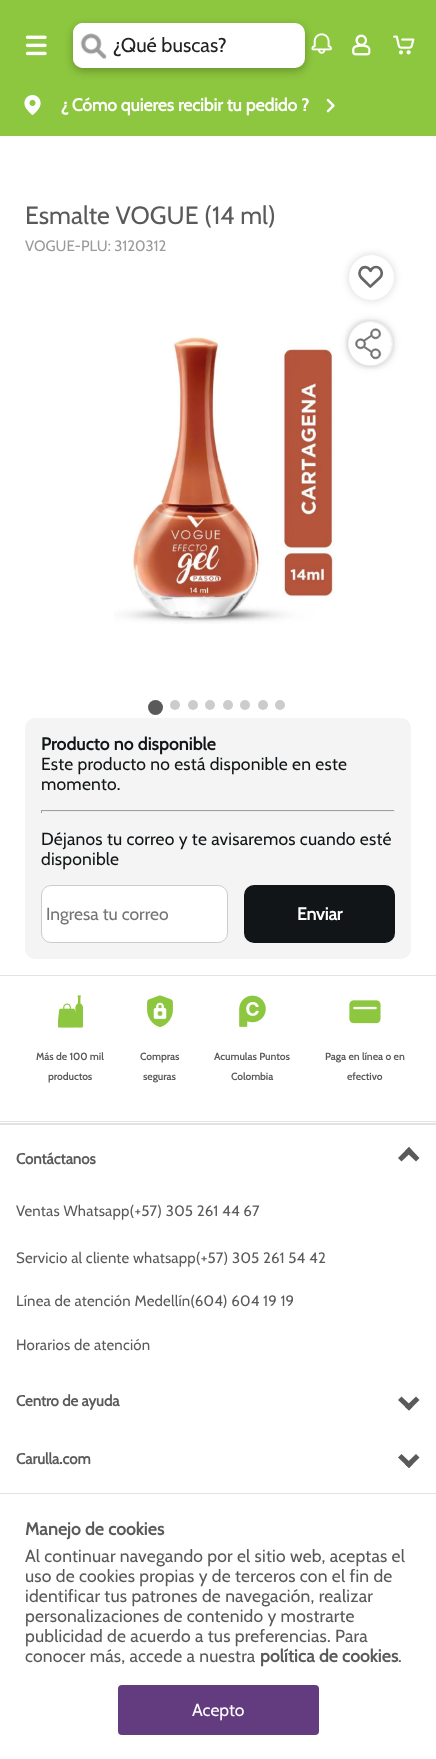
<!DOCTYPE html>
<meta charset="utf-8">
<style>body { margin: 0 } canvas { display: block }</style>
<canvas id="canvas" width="436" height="1759"></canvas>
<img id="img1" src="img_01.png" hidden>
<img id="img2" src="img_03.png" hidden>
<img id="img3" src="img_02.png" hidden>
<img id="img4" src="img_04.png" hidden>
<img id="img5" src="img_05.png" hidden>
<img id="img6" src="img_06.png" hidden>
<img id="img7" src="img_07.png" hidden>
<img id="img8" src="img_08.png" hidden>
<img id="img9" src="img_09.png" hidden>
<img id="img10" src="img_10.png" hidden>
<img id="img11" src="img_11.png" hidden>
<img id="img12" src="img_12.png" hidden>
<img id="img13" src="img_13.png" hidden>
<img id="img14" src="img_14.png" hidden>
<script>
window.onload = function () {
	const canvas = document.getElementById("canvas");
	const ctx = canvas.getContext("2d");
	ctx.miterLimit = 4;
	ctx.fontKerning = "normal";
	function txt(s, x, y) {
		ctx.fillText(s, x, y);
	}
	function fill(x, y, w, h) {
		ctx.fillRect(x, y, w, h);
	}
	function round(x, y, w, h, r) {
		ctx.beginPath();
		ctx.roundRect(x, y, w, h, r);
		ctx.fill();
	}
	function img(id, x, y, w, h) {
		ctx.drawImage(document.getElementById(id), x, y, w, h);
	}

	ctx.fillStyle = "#FFFFFF";
	fill(0, 0, 436, 1759);
	ctx.fillStyle = "#8DC63F";
	fill(0, 0, 436, 136);
	img("img1", 25, 35, 22, 21);
	ctx.fillStyle = "#FFFFFF";
	round(73, 23, 232, 45, 10);
	img("img2", 311, 33, 21, 21);
	ctx.save();
	ctx.beginPath();
	ctx.moveTo(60, 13);
	ctx.lineTo(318, 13);
	ctx.lineTo(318, 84);
	ctx.lineTo(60, 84);
	ctx.closePath();
	ctx.moveTo(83, 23);
	ctx.lineTo(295, 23);
	ctx.bezierCurveTo(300.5, 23, 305, 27.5, 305, 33);
	ctx.lineTo(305, 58);
	ctx.bezierCurveTo(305, 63.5, 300.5, 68, 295, 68);
	ctx.lineTo(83, 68);
	ctx.bezierCurveTo(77.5, 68, 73, 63.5, 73, 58);
	ctx.lineTo(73, 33);
	ctx.bezierCurveTo(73, 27.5, 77.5, 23, 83, 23);
	ctx.closePath();
	ctx.clip("evenodd");
	ctx.fillStyle = "rgba(0, 0, 0, 0.26)";
	ctx.filter = "blur(4px)";
	ctx.beginPath();
	ctx.roundRect(73, 26, 232, 45, 10);
	ctx.fill();
	ctx.filter = "none";
	ctx.restore();
	ctx.beginPath();
	ctx.roundRect(73, 23, 41, 45, [10, 0, 0, 10]);
	ctx.fill();
	img("img3", 80, 33, 27, 27);
	img("img4", 352, 34, 19, 22);
	img("img5", 393, 35, 22, 20);
	img("img6", 24, 95, 17, 20);
	img("img7", 326, 98, 9, 15);
	ctx.fillStyle = "rgba(0, 0, 0, 0.16)";
	ctx.filter = "blur(4px)";
	ctx.beginPath();
	ctx.roundRect(349, 255, 45, 45, 22.5);
	ctx.fill();
	ctx.filter = "none";
	ctx.fillStyle = "#FFFFFF";
	ctx.beginPath();
	ctx.arc(371.5, 277.5, 22.5, 0, Math.PI * 2);
	ctx.fill();
	img("img8", 358, 265, 26, 23);
	img("img9", 114, 336, 221, 288);
	ctx.fillStyle = "#5A5A5A";
	ctx.beginPath();
	ctx.arc(155.5, 707.5, 7.5, 0, Math.PI * 2);
	ctx.fill();
	ctx.fillStyle = "#CCCCCC";
	ctx.beginPath();
	ctx.arc(175, 705, 5, 0, Math.PI * 2);
	ctx.fill();
	ctx.beginPath();
	ctx.arc(193, 705, 5, 0, Math.PI * 2);
	ctx.fill();
	ctx.beginPath();
	ctx.arc(210, 705, 5, 0, Math.PI * 2);
	ctx.fill();
	ctx.beginPath();
	ctx.arc(228, 705, 5, 0, Math.PI * 2);
	ctx.fill();
	ctx.beginPath();
	ctx.arc(245, 705, 5, 0, Math.PI * 2);
	ctx.fill();
	ctx.beginPath();
	ctx.arc(263, 705, 5, 0, Math.PI * 2);
	ctx.fill();
	ctx.beginPath();
	ctx.arc(280, 705, 5, 0, Math.PI * 2);
	ctx.fill();
	ctx.fillStyle = "rgba(0, 0, 0, 0.16)";
	ctx.filter = "blur(4px)";
	ctx.beginPath();
	ctx.roundRect(348, 321, 45, 45, 22.5);
	ctx.fill();
	ctx.filter = "none";
	ctx.fillStyle = "#FFFFFF";
	ctx.beginPath();
	ctx.arc(370.5, 343.5, 22.5, 0, Math.PI * 2);
	ctx.fill();
	img("img10", 345, 319, 50, 50);
	ctx.fillStyle = "#F4F4F4";
	round(25, 718, 386, 241, 10);
	ctx.fillStyle = "#9F9F9F";
	fill(41, 810, 354, 1);
	ctx.fillStyle = "#EEEEEE";
	fill(394, 810, 1, 3);
	fill(41, 811, 354, 1);
	ctx.fillStyle = "#9F9F9F";
	fill(41, 810, 1, 3);
	ctx.fillStyle = "#FFFFFF";
	ctx.beginPath();
	ctx.roundRect(41.5, 885.5, 186, 57, 9.5);
	ctx.fill();
	ctx.strokeStyle = "#CCCCCC";
	ctx.stroke();
	ctx.fillStyle = "#111517";
	round(244, 885, 151, 58, 10);
	ctx.fillStyle = "#E3E3E3";
	fill(0, 975, 436, 1);
	fill(0, 1121, 436, 1);
	img("img11", 58, 995, 25, 33);
	img("img12", 147, 995, 26, 32);
	img("img13", 239, 995, 27, 32);
	img("img14", 349, 1000, 32, 24);
	fill(0, 1123, 436, 2);
	ctx.fillStyle = "#5A5A5A";
	ctx.beginPath();
	ctx.moveTo(409, 1147);
	ctx.lineTo(419.5, 1158);
	ctx.lineTo(416, 1161.5);
	ctx.lineTo(405, 1151);
	ctx.closePath();
	ctx.fill();
	ctx.beginPath();
	ctx.moveTo(409, 1147);
	ctx.lineTo(412.5, 1151);
	ctx.lineTo(401.5, 1161.5);
	ctx.lineTo(398, 1158);
	ctx.closePath();
	ctx.fill();
	ctx.beginPath();
	ctx.moveTo(409, 1410.5);
	ctx.lineTo(398, 1400);
	ctx.lineTo(401.5, 1396.5);
	ctx.lineTo(412.5, 1407);
	ctx.closePath();
	ctx.fill();
	ctx.beginPath();
	ctx.moveTo(409, 1410.5);
	ctx.lineTo(405, 1407);
	ctx.lineTo(416, 1396.5);
	ctx.lineTo(419.5, 1400);
	ctx.closePath();
	ctx.fill();
	ctx.beginPath();
	ctx.moveTo(409, 1468);
	ctx.lineTo(398, 1457.5);
	ctx.lineTo(401.5, 1454);
	ctx.lineTo(412.5, 1464.5);
	ctx.closePath();
	ctx.fill();
	ctx.beginPath();
	ctx.moveTo(409, 1468);
	ctx.lineTo(405, 1464.5);
	ctx.lineTo(416, 1454);
	ctx.lineTo(419.5, 1457.5);
	ctx.closePath();
	ctx.fill();
	ctx.fillStyle = "#E3E3E3";
	fill(0, 1493, 436, 1);
	ctx.fillStyle = "#633B7F";
	round(118, 1685, 201, 50, 4);
	ctx.font = "20px Cabin";
	ctx.fillStyle = "#222222";
	txt("¿Qué buscas?", 113, 52);
	ctx.font = "bold 17.5px Cabin";
	ctx.fillStyle = "#FFFFFF";
	txt("¿ Cómo quieres recibir tu pedido ?", 61, 111);
	ctx.font = "25px Cabin";
	ctx.fillStyle = "#5A5A5A";
	txt("Esmalte VOGUE (14 ml)", 25, 224);
	ctx.font = "15px Cabin";
	ctx.fillStyle = "#9A9A9A";
	txt("VOGUE-PLU: 3120312", 25, 251);
	ctx.letterSpacing = "0.2px";
	ctx.font = "bold 17.5px Cabin";
	ctx.fillStyle = "#111517";
	txt("Producto no disponible", 41, 750);
	ctx.font = "17.5px Cabin";
	txt("Este producto no está disponible en este", 41, 770);
	txt("momento.", 41, 790);
	txt("Déjanos tu correo y te avisaremos cuando esté", 41, 845);
	txt("disponible", 41, 865);
	ctx.letterSpacing = "0px";
	ctx.fillStyle = "#757575";
	txt("Ingresa tu correo", 46, 920);
	ctx.font = "bold 17.5px Cabin";
	ctx.fillStyle = "#FFFFFF";
	txt("Enviar", 297, 920);
	ctx.letterSpacing = "0.2px";
	ctx.font = "bold 10px Cabin";
	ctx.fillStyle = "#5A5A5A";
	txt("Más de 100 mil", 36, 1060);
	txt("productos", 48, 1080);
	txt("Compras", 140, 1060);
	txt("seguras", 143, 1080);
	txt("Acumulas Puntos", 214, 1060);
	txt("Colombia", 231, 1080);
	txt("Paga en línea o en", 325, 1060);
	txt("efectivo", 347, 1080);
	ctx.letterSpacing = "0px";
	ctx.font = "bold 15px Cabin";
	txt("Contáctanos", 16, 1164);
	ctx.letterSpacing = "0.2px";
	ctx.font = "15px Cabin";
	txt("Ventas Whatsapp(+57) 305 261 44 67", 16, 1216);
	txt("Servicio al cliente whatsapp(+57) 305 261 54 42", 16, 1263);
	txt("Línea de atención Medellín(604) 604 19 19", 16, 1306);
	txt("Horarios de atención", 16, 1350);
	ctx.letterSpacing = "0px";
	ctx.font = "bold 15px Cabin";
	txt("Centro de ayuda", 16, 1406);
	txt("Carulla.com", 16, 1464);
	ctx.letterSpacing = "0.2px";
	ctx.font = "bold 17.5px Cabin";
	txt("Manejo de cookies", 25, 1535);
	ctx.font = "17.5px Cabin";
	txt("Al continuar navegando por el sitio web, aceptas el", 25, 1562);
	txt("uso de cookies propias y de terceros con el fin de", 25, 1582);
	txt("identificar tus patrones de navegación, realizar", 25, 1602);
	txt("personalizaciones de contenido y mostrarte", 25, 1622);
	txt("publicidad de acuerdo a tus preferencias. Para", 25, 1642);
	txt("conocer más, accede a nuestra", 25, 1662);
	ctx.font = "bold 17.5px Cabin";
	txt("política de cookies", 260, 1662);
	ctx.font = "17.5px Cabin";
	txt(".", 398, 1662);
	ctx.letterSpacing = "0px";
	ctx.fillStyle = "#FFFFFF";
	txt("Acepto", 192, 1716);
};
</script>
